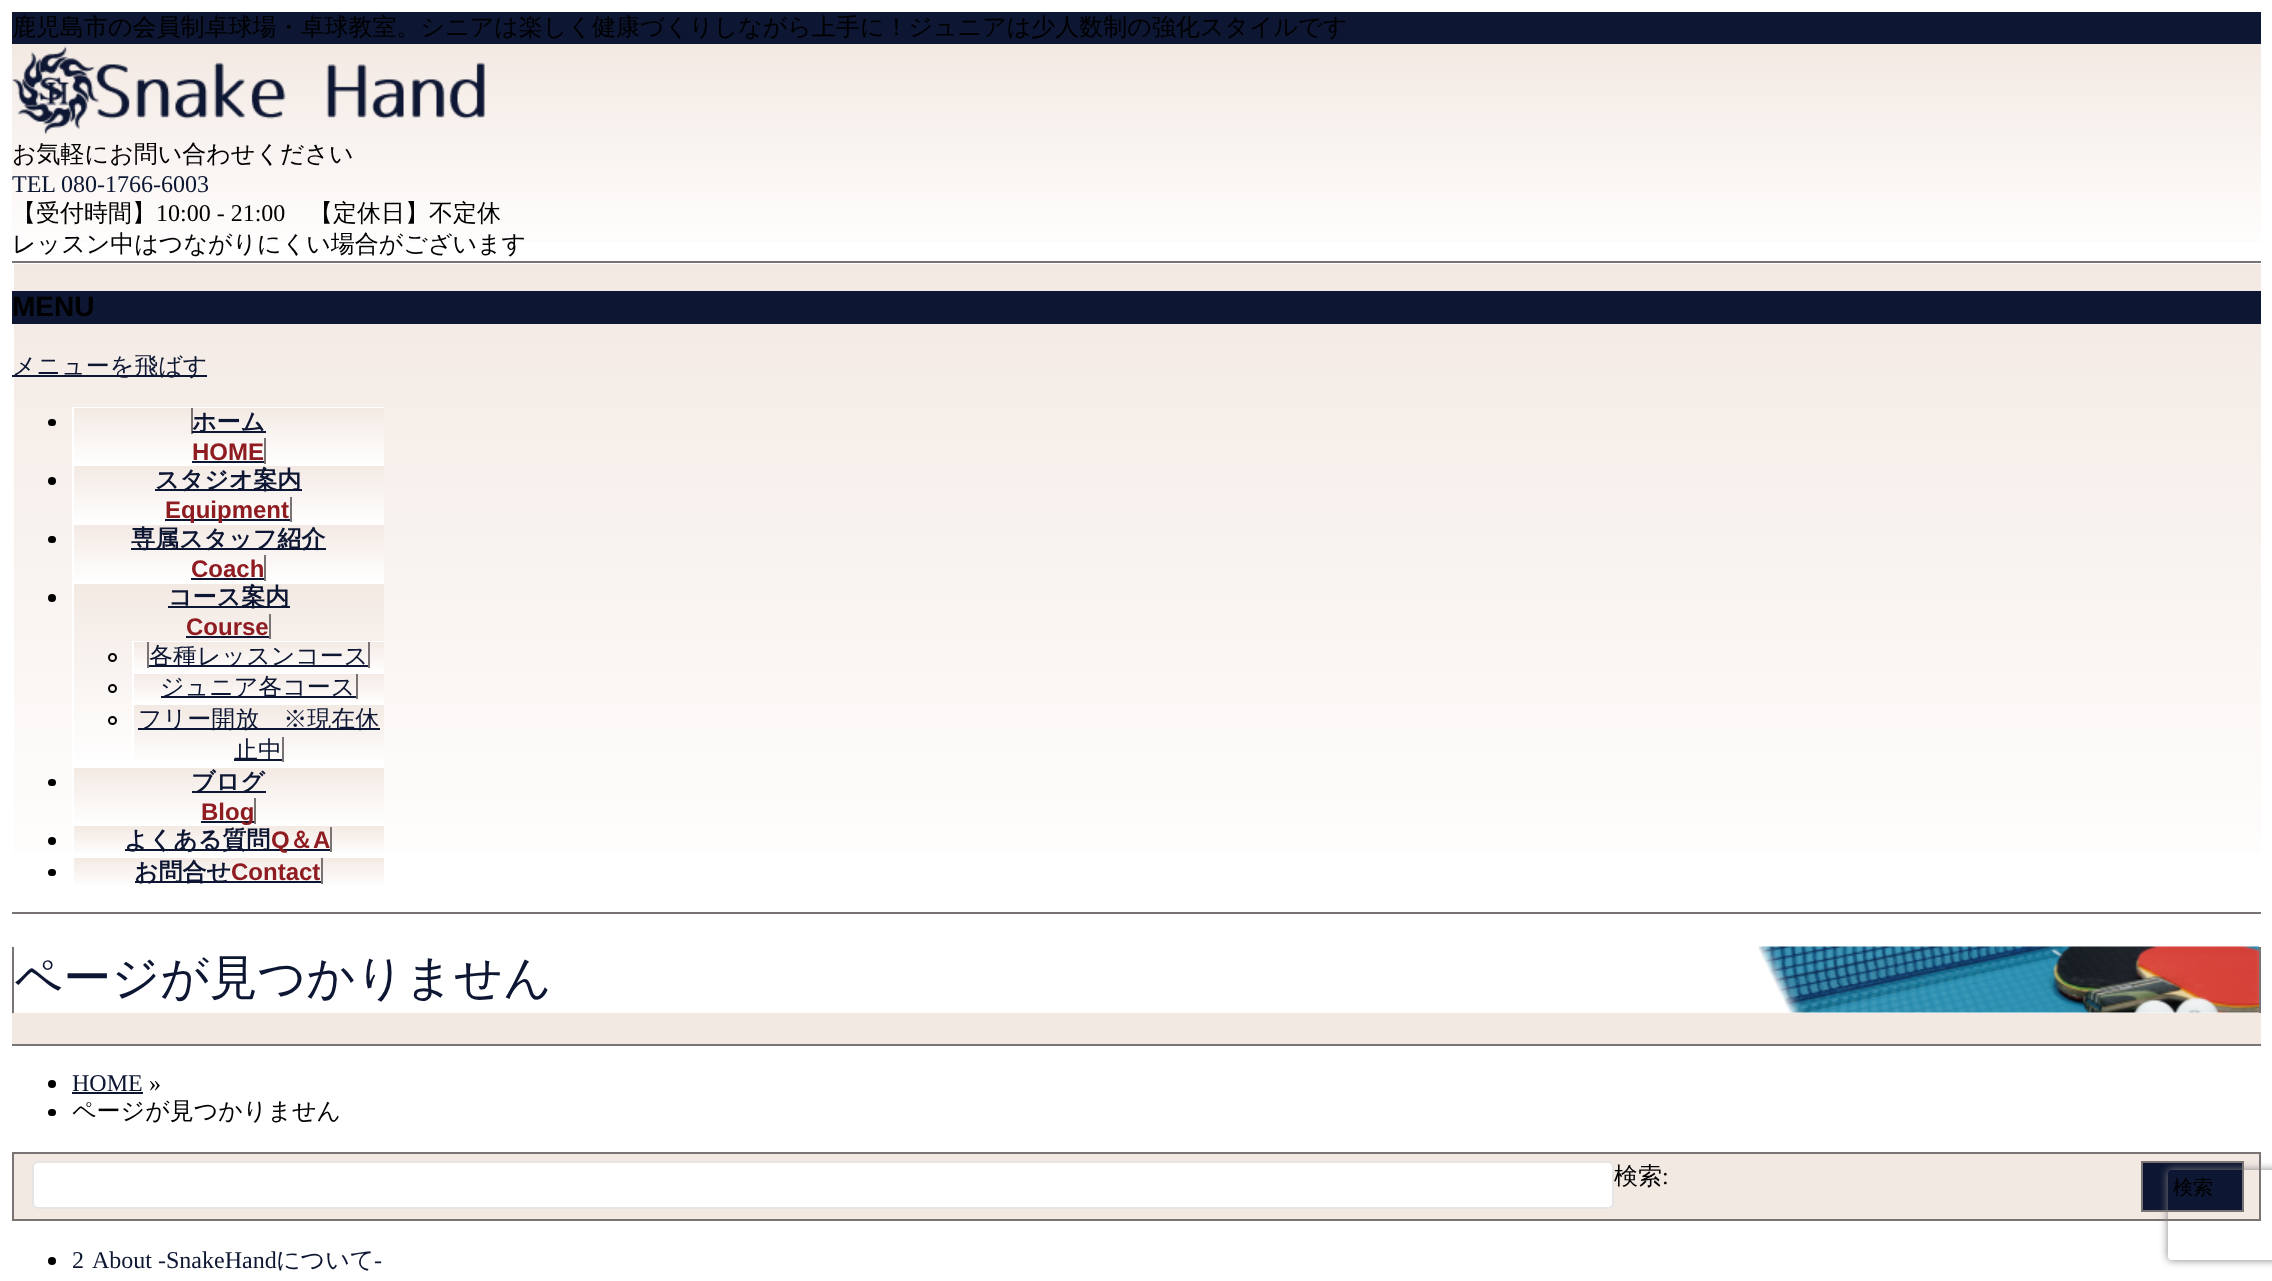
<!DOCTYPE html>
<meta charset="utf-8">
<style>body { margin: 0 } canvas { display: block }</style>
<canvas id="canvas" width="2272" height="1281"></canvas>
<img id="img1" src="img_01.png" hidden>
<img id="img2" src="img_02.png" hidden>
<script>
window.onload = function () {
	const canvas = document.getElementById("canvas");
	const ctx = canvas.getContext("2d");
	ctx.miterLimit = 4;
	ctx.fontKerning = "normal";
	function txt(s, x, y) {
		ctx.fillText(s, x, y);
	}
	function fill(x, y, w, h) {
		ctx.fillRect(x, y, w, h);
	}
	function round(x, y, w, h, r) {
		ctx.beginPath();
		ctx.roundRect(x, y, w, h, r);
		ctx.fill();
	}
	function img(id, x, y, w, h) {
		ctx.drawImage(document.getElementById(id), x, y, w, h);
	}
	let gradient;

	ctx.fillStyle = "#FFFFFF";
	fill(0, 0, 2272, 1281);
	ctx.fillStyle = "#0D1632";
	fill(12, 12, 2249, 32);
	gradient = ctx.createLinearGradient(1136, 43, 1136, 261);
	gradient.addColorStop(0, "#F3E9E3");
	gradient.addColorStop(1, "#FFFFFF");
	ctx.fillStyle = gradient;
	fill(12, 44, 2249, 198);
	img("img1", 12, 46, 473, 88);
	gradient = ctx.createLinearGradient(1136, 262, 1136, 912);
	gradient.addColorStop(0, "#F3E9E3");
	gradient.addColorStop(1, "#FFFFFF");
	ctx.fillStyle = gradient;
	fill(14, 264, 2247, 590);
	ctx.fillStyle = "#7A7374";
	fill(12, 261, 2249, 2);
	fill(12, 912, 2249, 2);
	ctx.fillStyle = "#0D1632";
	fill(12, 291, 2249, 33);
	fill(12, 375, 195, 2);
	gradient = ctx.createLinearGradient(228, 407, 228, 465);
	gradient.addColorStop(0, "#F3E9E3");
	gradient.addColorStop(1, "#FFFFFF");
	ctx.fillStyle = gradient;
	fill(74, 408, 310, 57);
	ctx.save();
	ctx.beginPath();
	ctx.rect(72, 407, 312, 58);
	ctx.clip();
	ctx.fillStyle = "#FFFFFF";
	ctx.beginPath();
	ctx.moveTo(-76, 258);
	ctx.lineTo(532, 258);
	ctx.lineTo(532, 614);
	ctx.lineTo(-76, 614);
	ctx.closePath();
	ctx.moveTo(74, 408);
	ctx.lineTo(386, 408);
	ctx.lineTo(386, 466);
	ctx.lineTo(74, 466);
	ctx.closePath();
	ctx.fill("evenodd");
	ctx.restore();
	ctx.fillStyle = "#000000";
	round(48, 419, 8, 7, 3.5);
	ctx.fillStyle = "#7A7374";
	fill(191, 408, 2, 26);
	ctx.fillStyle = "#0D1632";
	fill(192, 431, 74, 2);
	ctx.fillStyle = "#7A7374";
	fill(264, 438, 2, 26);
	ctx.fillStyle = "#0D1632";
	fill(192, 461, 72, 2);
	gradient = ctx.createLinearGradient(228, 465, 228, 524);
	gradient.addColorStop(0, "#F3E9E3");
	gradient.addColorStop(1, "#FFFFFF");
	ctx.fillStyle = gradient;
	fill(74, 466, 310, 58);
	ctx.save();
	ctx.beginPath();
	ctx.rect(72, 465, 312, 59);
	ctx.clip();
	ctx.fillStyle = "#FFFFFF";
	ctx.beginPath();
	ctx.moveTo(-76, 316);
	ctx.lineTo(532, 316);
	ctx.lineTo(532, 672);
	ctx.lineTo(-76, 672);
	ctx.closePath();
	ctx.moveTo(74, 466);
	ctx.lineTo(386, 466);
	ctx.lineTo(386, 525);
	ctx.lineTo(74, 525);
	ctx.closePath();
	ctx.fill("evenodd");
	ctx.restore();
	ctx.fillStyle = "#000000";
	ctx.beginPath();
	ctx.arc(52, 481, 4, 0, Math.PI * 2);
	ctx.fill();
	ctx.fillStyle = "#0D1632";
	fill(155, 489, 147, 2);
	ctx.fillStyle = "#7A7374";
	fill(290, 497, 2, 25);
	ctx.fillStyle = "#0D1632";
	fill(165, 519, 125, 2);
	gradient = ctx.createLinearGradient(228, 524, 228, 582);
	gradient.addColorStop(0, "#F3E9E3");
	gradient.addColorStop(1, "#FFFFFF");
	ctx.fillStyle = gradient;
	fill(74, 525, 310, 57);
	ctx.save();
	ctx.beginPath();
	ctx.rect(72, 524, 312, 58);
	ctx.clip();
	ctx.fillStyle = "#FFFFFF";
	ctx.beginPath();
	ctx.moveTo(-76, 375);
	ctx.lineTo(532, 375);
	ctx.lineTo(532, 730);
	ctx.lineTo(-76, 730);
	ctx.closePath();
	ctx.moveTo(74, 525);
	ctx.lineTo(386, 525);
	ctx.lineTo(386, 584);
	ctx.lineTo(74, 584);
	ctx.closePath();
	ctx.fill("evenodd");
	ctx.restore();
	ctx.fillStyle = "#000000";
	round(48, 536, 8, 7, 3.5);
	ctx.fillStyle = "#0D1632";
	fill(131, 548, 195, 2);
	ctx.fillStyle = "#7A7374";
	fill(264, 555, 2, 26);
	ctx.fillStyle = "#0D1632";
	fill(191, 578, 73, 2);
	gradient = ctx.createLinearGradient(228, 582, 228, 767);
	gradient.addColorStop(0, "#F3E9E3");
	gradient.addColorStop(1, "#FFFFFF");
	ctx.fillStyle = gradient;
	fill(74, 584, 310, 183);
	ctx.save();
	ctx.beginPath();
	ctx.rect(72, 582, 312, 185);
	ctx.clip();
	ctx.fillStyle = "#FFFFFF";
	ctx.beginPath();
	ctx.moveTo(-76, 434);
	ctx.lineTo(532, 434);
	ctx.lineTo(532, 915);
	ctx.lineTo(-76, 915);
	ctx.closePath();
	ctx.moveTo(74, 584);
	ctx.lineTo(386, 584);
	ctx.lineTo(386, 768);
	ctx.lineTo(74, 768);
	ctx.closePath();
	ctx.fill("evenodd");
	ctx.restore();
	ctx.fillStyle = "#000000";
	ctx.beginPath();
	ctx.arc(52, 598, 4, 0, Math.PI * 2);
	ctx.fill();
	ctx.fillStyle = "#0D1632";
	fill(168, 606, 122, 2);
	ctx.fillStyle = "#7A7374";
	fill(269, 614, 2, 25);
	ctx.fillStyle = "#0D1632";
	fill(186, 636, 83, 2);
	gradient = ctx.createLinearGradient(258, 641, 258, 672);
	gradient.addColorStop(0, "#F3E9E3");
	gradient.addColorStop(1, "#FFFFFF");
	ctx.fillStyle = gradient;
	fill(134, 642, 250, 30);
	ctx.save();
	ctx.beginPath();
	ctx.rect(132, 641, 252, 31);
	ctx.clip();
	ctx.fillStyle = "#FFFFFF";
	ctx.beginPath();
	ctx.moveTo(-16, 492);
	ctx.lineTo(532, 492);
	ctx.lineTo(532, 820);
	ctx.lineTo(-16, 820);
	ctx.closePath();
	ctx.moveTo(134, 642);
	ctx.lineTo(386, 642);
	ctx.lineTo(386, 674);
	ctx.lineTo(134, 674);
	ctx.closePath();
	ctx.fill("evenodd");
	ctx.restore();
	ctx.beginPath();
	ctx.arc(112.5, 657.5, 3.5, 0, Math.PI * 2);
	ctx.strokeStyle = "#000000";
	ctx.lineWidth = 2;
	ctx.stroke();
	ctx.fillStyle = "#7A7374";
	fill(368, 642, 2, 26);
	fill(147, 642, 2, 26);
	ctx.fillStyle = "#0D1632";
	fill(149, 665, 219, 2);
	gradient = ctx.createLinearGradient(258, 672, 258, 704);
	gradient.addColorStop(0, "#F3E9E3");
	gradient.addColorStop(1, "#FFFFFF");
	ctx.fillStyle = gradient;
	fill(134, 674, 250, 30);
	ctx.save();
	ctx.beginPath();
	ctx.rect(132, 672, 252, 32);
	ctx.clip();
	ctx.fillStyle = "#FFFFFF";
	ctx.beginPath();
	ctx.moveTo(-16, 524);
	ctx.lineTo(532, 524);
	ctx.lineTo(532, 852);
	ctx.lineTo(-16, 852);
	ctx.closePath();
	ctx.moveTo(134, 674);
	ctx.lineTo(386, 674);
	ctx.lineTo(386, 705);
	ctx.lineTo(134, 705);
	ctx.closePath();
	ctx.fill("evenodd");
	ctx.restore();
	ctx.beginPath();
	ctx.arc(112.5, 688.5, 3.5, 0, Math.PI * 2);
	ctx.stroke();
	ctx.fillStyle = "#7A7374";
	fill(356, 674, 2, 25);
	ctx.fillStyle = "#0D1632";
	fill(161, 696, 195, 2);
	gradient = ctx.createLinearGradient(258, 704, 258, 767);
	gradient.addColorStop(0, "#F3E9E3");
	gradient.addColorStop(1, "#FFFFFF");
	ctx.fillStyle = gradient;
	fill(134, 705, 250, 54);
	ctx.save();
	ctx.beginPath();
	ctx.rect(132, 704, 252, 63);
	ctx.clip();
	ctx.fillStyle = "#FFFFFF";
	ctx.beginPath();
	ctx.moveTo(-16, 555);
	ctx.lineTo(532, 555);
	ctx.lineTo(532, 915);
	ctx.lineTo(-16, 915);
	ctx.closePath();
	ctx.moveTo(134, 705);
	ctx.lineTo(386, 705);
	ctx.lineTo(386, 768);
	ctx.lineTo(134, 768);
	ctx.closePath();
	ctx.fill("evenodd");
	ctx.restore();
	ctx.beginPath();
	ctx.arc(112.5, 720.5, 3.5, 0, Math.PI * 2);
	ctx.stroke();
	ctx.fillStyle = "#0D1632";
	fill(138, 728, 242, 2);
	ctx.fillStyle = "#7A7374";
	fill(282, 737, 2, 25);
	ctx.fillStyle = "#0D1632";
	fill(234, 759, 48, 2);
	gradient = ctx.createLinearGradient(228, 767, 228, 825);
	gradient.addColorStop(0, "#F3E9E3");
	gradient.addColorStop(1, "#FFFFFF");
	ctx.fillStyle = gradient;
	fill(74, 768, 310, 57);
	ctx.save();
	ctx.beginPath();
	ctx.rect(72, 767, 312, 58);
	ctx.clip();
	ctx.fillStyle = "#FFFFFF";
	ctx.beginPath();
	ctx.moveTo(-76, 618);
	ctx.lineTo(532, 618);
	ctx.lineTo(532, 974);
	ctx.lineTo(-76, 974);
	ctx.closePath();
	ctx.moveTo(74, 768);
	ctx.lineTo(386, 768);
	ctx.lineTo(386, 826);
	ctx.lineTo(74, 826);
	ctx.closePath();
	ctx.fill("evenodd");
	ctx.restore();
	ctx.fillStyle = "#000000";
	round(48, 779, 8, 7, 3.5);
	ctx.fillStyle = "#0D1632";
	fill(192, 791, 74, 2);
	ctx.fillStyle = "#7A7374";
	fill(254, 798, 2, 26);
	ctx.fillStyle = "#0D1632";
	fill(201, 821, 53, 2);
	gradient = ctx.createLinearGradient(228, 825, 228, 857);
	gradient.addColorStop(0, "#F3E9E3");
	gradient.addColorStop(1, "#FFFFFF");
	ctx.fillStyle = gradient;
	fill(74, 826, 310, 25);
	ctx.save();
	ctx.beginPath();
	ctx.rect(72, 825, 312, 32);
	ctx.clip();
	ctx.fillStyle = "#FFFFFF";
	ctx.beginPath();
	ctx.moveTo(-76, 676);
	ctx.lineTo(532, 676);
	ctx.lineTo(532, 1005);
	ctx.lineTo(-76, 1005);
	ctx.closePath();
	ctx.moveTo(74, 826);
	ctx.lineTo(386, 826);
	ctx.lineTo(386, 858);
	ctx.lineTo(74, 858);
	ctx.closePath();
	ctx.fill("evenodd");
	ctx.restore();
	ctx.fillStyle = "#000000";
	ctx.beginPath();
	ctx.arc(52, 841, 4, 0, Math.PI * 2);
	ctx.fill();
	ctx.fillStyle = "#0D1632";
	fill(125, 849, 205, 2);
	ctx.fillStyle = "#7A7374";
	fill(330, 827, 2, 25);
	gradient = ctx.createLinearGradient(228, 857, 228, 888);
	gradient.addColorStop(0, "#F3E9E3");
	gradient.addColorStop(1, "#FFFFFF");
	ctx.fillStyle = gradient;
	fill(74, 858, 310, 26);
	ctx.fillStyle = "#000000";
	round(48, 869, 8, 7, 3.5);
	ctx.fillStyle = "#0D1632";
	fill(135, 881, 186, 2);
	ctx.fillStyle = "#7A7374";
	fill(321, 858, 2, 26);
	ctx.fillStyle = "#F3E9E3";
	fill(12, 1013, 2249, 31);
	ctx.fillStyle = "#7A7374";
	fill(12, 1044, 2249, 2);
	img("img2", 1758, 946, 501, 67);
	fill(2259, 947, 2, 66);
	fill(12, 947, 2, 66);
	ctx.fillStyle = "#000000";
	ctx.beginPath();
	ctx.arc(52, 1084, 4, 0, Math.PI * 2);
	ctx.fill();
	ctx.fillStyle = "#0D1632";
	fill(72, 1092, 71, 2);
	ctx.fillStyle = "#000000";
	round(48, 1109, 8, 7, 3.5);
	ctx.fillStyle = "#F3E9E3";
	ctx.beginPath();
	ctx.rect(13, 1153, 2247, 67);
	ctx.fill();
	ctx.strokeStyle = "#7A7374";
	ctx.stroke();
	ctx.fillStyle = "#FFFFFF";
	ctx.beginPath();
	ctx.roundRect(33, 1162, 1580, 46, 5);
	ctx.fill();
	ctx.strokeStyle = "#E5E5E5";
	ctx.stroke();
	ctx.fillStyle = "#0D1632";
	ctx.beginPath();
	ctx.rect(2142, 1162, 101, 49);
	ctx.fill();
	ctx.strokeStyle = "#7A7374";
	ctx.stroke();
	ctx.fillStyle = "#000000";
	ctx.beginPath();
	ctx.arc(52, 1261, 4, 0, Math.PI * 2);
	ctx.fill();
	ctx.save();
	ctx.beginPath();
	ctx.moveTo(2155, 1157);
	ctx.lineTo(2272, 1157);
	ctx.lineTo(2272, 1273);
	ctx.lineTo(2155, 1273);
	ctx.closePath();
	ctx.moveTo(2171, 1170);
	ctx.lineTo(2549, 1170);
	ctx.bezierCurveTo(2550.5, 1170, 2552, 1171.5, 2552, 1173);
	ctx.lineTo(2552, 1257);
	ctx.bezierCurveTo(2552, 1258.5, 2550.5, 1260, 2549, 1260);
	ctx.lineTo(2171, 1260);
	ctx.bezierCurveTo(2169.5, 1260, 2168, 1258.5, 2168, 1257);
	ctx.lineTo(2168, 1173);
	ctx.bezierCurveTo(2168, 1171.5, 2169.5, 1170, 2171, 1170);
	ctx.closePath();
	ctx.clip("evenodd");
	ctx.fillStyle = "#808080";
	ctx.filter = "blur(4px)";
	ctx.beginPath();
	ctx.roundRect(2168, 1170, 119, 90, 3);
	ctx.fill();
	ctx.filter = "none";
	ctx.restore();
	ctx.font = "500 24px WenQuanYi Zen Hei";
	txt("鹿児島市の会員制卓球場・卓球教室。シニアは楽しく健康づくりしながら上手に！ジュニアは少人数制の強化スタイルです", 12, 35);
	txt("お気軽にお問い合わせください", 12, 162);
	ctx.font = "24px Liberation Serif";
	ctx.fillStyle = "#0D1632";
	txt("TEL 080-1766-6003", 12, 192);
	ctx.font = "500 24px WenQuanYi Zen Hei";
	ctx.fillStyle = "#000000";
	txt("【受付時間】", 12, 221);
	ctx.font = "24px Liberation Serif";
	txt("10:00 - 21:00", 156, 221);
	ctx.font = "500 24px WenQuanYi Zen Hei";
	txt("【定休日】不定休", 309, 221);
	txt("レッスン中はつながりにくい場合がございます", 12, 252);
	ctx.font = "bold 28px Liberation Sans";
	txt("MENU", 12, 316);
	ctx.font = "500 24px WenQuanYi Zen Hei";
	ctx.fillStyle = "#0D1632";
	txt("メニューを飛ばす", 12, 374);
	ctx.font = "bold 24px WenQuanYi Zen Hei";
	txt("ホーム", 192, 430);
	ctx.font = "bold 24px Liberation Sans";
	ctx.fillStyle = "#8F1C21";
	txt("HOME", 192, 460);
	ctx.font = "bold 24px WenQuanYi Zen Hei";
	ctx.fillStyle = "#0D1632";
	txt("スタジオ案内", 155, 488);
	ctx.font = "bold 24px Liberation Sans";
	ctx.fillStyle = "#8F1C21";
	txt("Equipment", 165, 518);
	ctx.font = "bold 24px WenQuanYi Zen Hei";
	ctx.fillStyle = "#0D1632";
	txt("専属スタッフ紹介", 131, 547);
	ctx.font = "bold 24px Liberation Sans";
	ctx.fillStyle = "#8F1C21";
	txt("Coach", 191, 577);
	ctx.font = "bold 24px WenQuanYi Zen Hei";
	ctx.fillStyle = "#0D1632";
	txt("コース案内", 168, 605);
	ctx.font = "bold 24px Liberation Sans";
	ctx.fillStyle = "#8F1C21";
	txt("Course", 186, 635);
	ctx.font = "500 24px WenQuanYi Zen Hei";
	ctx.fillStyle = "#0D1632";
	txt("各種レッスンコース", 149, 664);
	txt("ジュニア各コース", 160, 695);
	txt("フリー開放　※現在休", 138, 727);
	txt("止中", 234, 758);
	ctx.font = "bold 24px WenQuanYi Zen Hei";
	txt("ブログ", 191, 790);
	ctx.font = "bold 24px Liberation Sans";
	ctx.fillStyle = "#8F1C21";
	txt("Blog", 201, 820);
	ctx.font = "bold 24px WenQuanYi Zen Hei";
	ctx.fillStyle = "#0D1632";
	txt("よくある質問", 124, 848);
	ctx.font = "bold 24px Liberation Sans";
	ctx.fillStyle = "#8F1C21";
	txt("Q", 271, 848);
	ctx.font = "bold 24px WenQuanYi Zen Hei";
	txt("＆", 289, 848);
	ctx.font = "bold 24px Liberation Sans";
	txt("A", 313, 848);
	ctx.font = "bold 24px WenQuanYi Zen Hei";
	ctx.fillStyle = "#0D1632";
	txt("お問合せ", 134, 880);
	ctx.font = "bold 24px Liberation Sans";
	ctx.fillStyle = "#8F1C21";
	txt("Contact", 231, 880);
	ctx.font = "500 48px WenQuanYi Zen Hei";
	ctx.fillStyle = "#0D1632";
	txt("ページが見つかりません", 14, 994);
	ctx.font = "24px Liberation Serif";
	txt("HOME", 72, 1091);
	ctx.fillStyle = "#000000";
	txt("»", 149, 1091);
	ctx.font = "500 24px WenQuanYi Zen Hei";
	txt("ページが見つかりません", 72, 1119);
	txt("検索", 1614, 1184);
	ctx.font = "24px Liberation Serif";
	txt(":", 1662, 1184);
	ctx.font = "500 20px WenQuanYi Zen Hei";
	txt("検索", 2173, 1194);
	ctx.font = "24px Liberation Serif";
	ctx.fillStyle = "#0D1632";
	txt("2", 72, 1268);
	txt("About -SnakeHand", 92, 1268);
	ctx.font = "500 24px WenQuanYi Zen Hei";
	txt("について", 276, 1268);
	ctx.font = "24px Liberation Serif";
	txt("-", 374, 1268);
};
</script>
